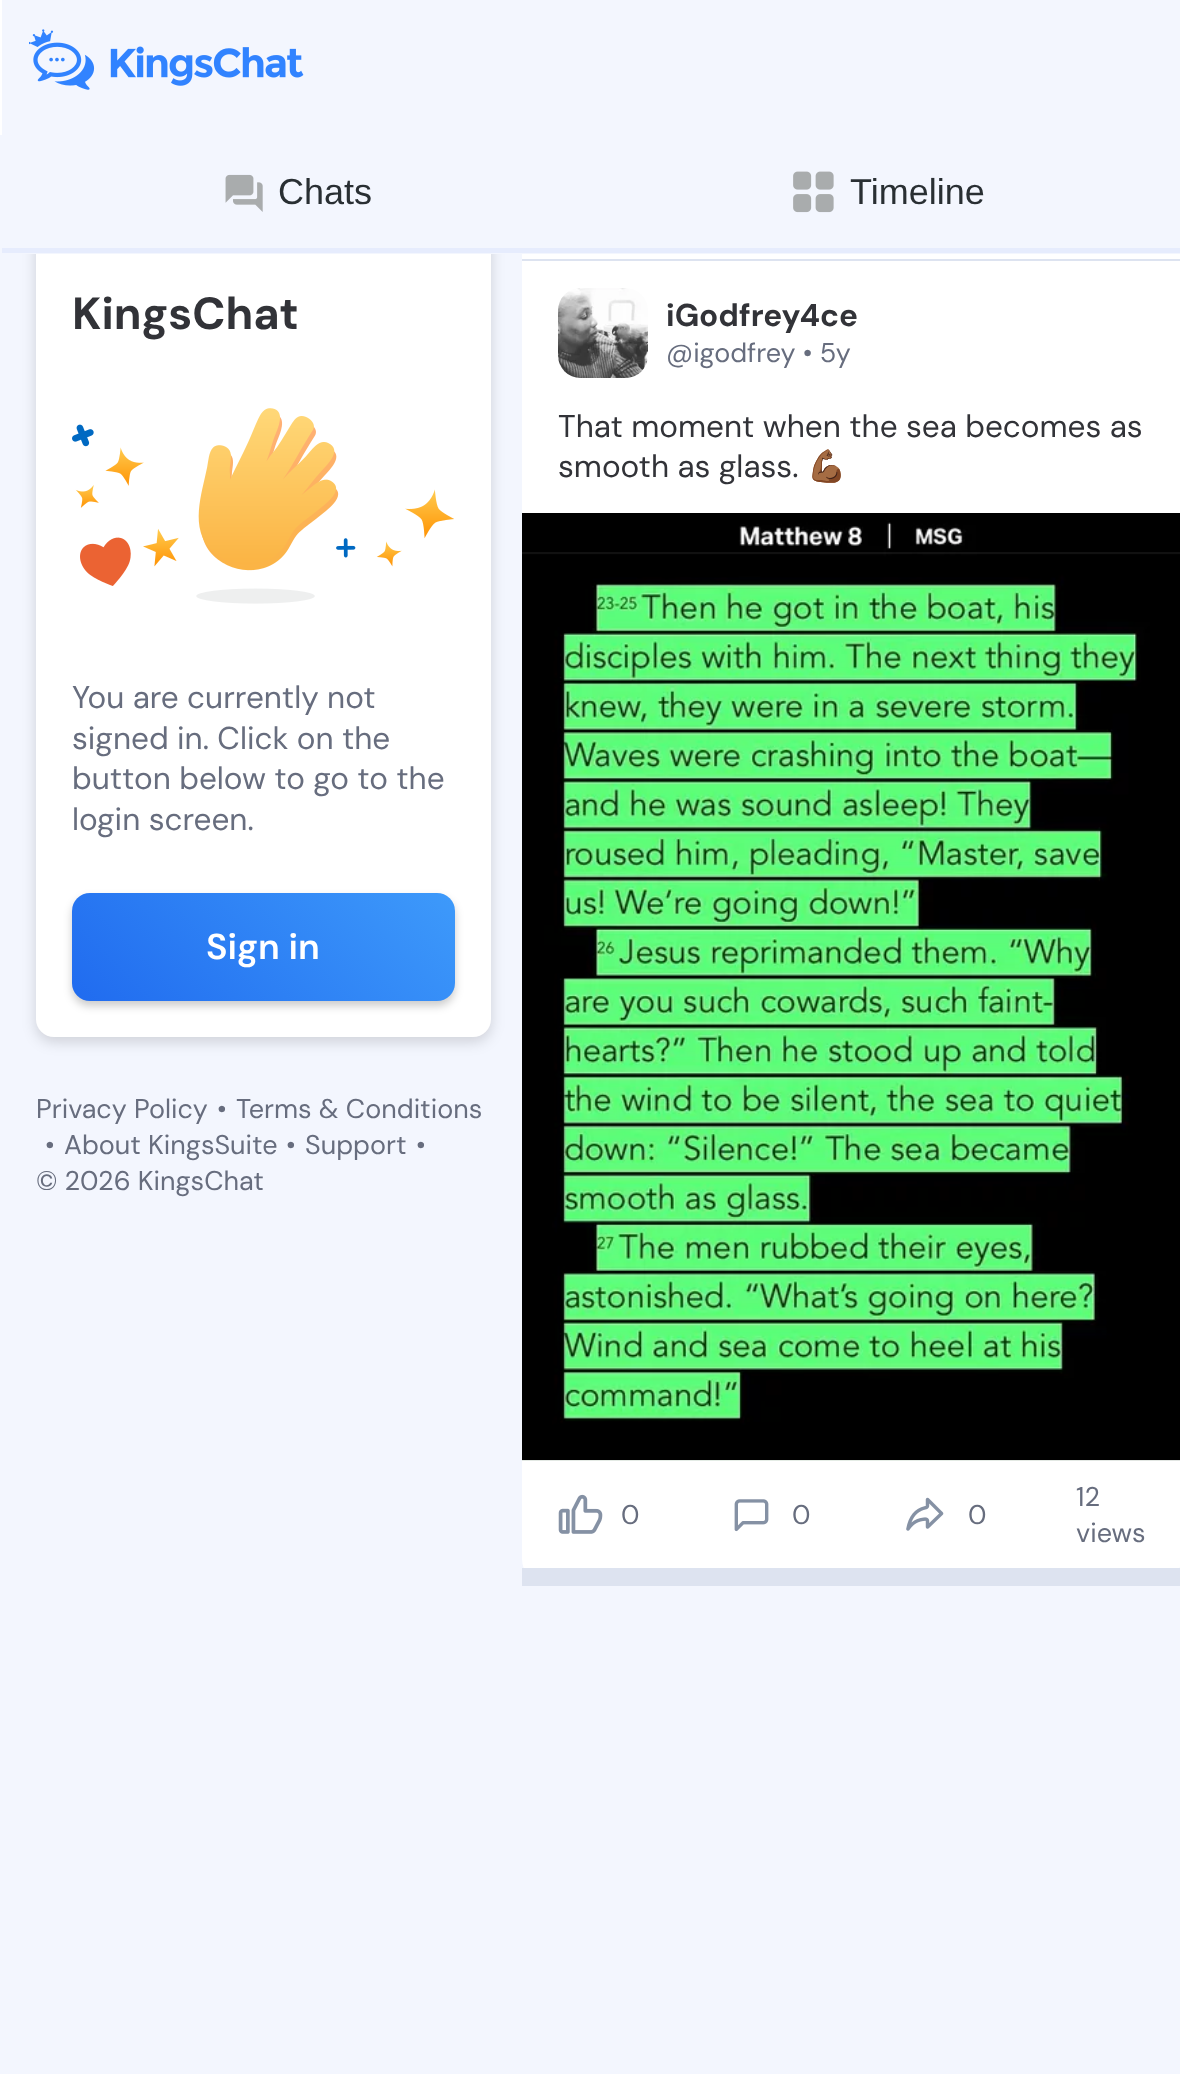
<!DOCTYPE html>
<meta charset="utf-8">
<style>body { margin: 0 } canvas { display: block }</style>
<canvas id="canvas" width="1180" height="2074"></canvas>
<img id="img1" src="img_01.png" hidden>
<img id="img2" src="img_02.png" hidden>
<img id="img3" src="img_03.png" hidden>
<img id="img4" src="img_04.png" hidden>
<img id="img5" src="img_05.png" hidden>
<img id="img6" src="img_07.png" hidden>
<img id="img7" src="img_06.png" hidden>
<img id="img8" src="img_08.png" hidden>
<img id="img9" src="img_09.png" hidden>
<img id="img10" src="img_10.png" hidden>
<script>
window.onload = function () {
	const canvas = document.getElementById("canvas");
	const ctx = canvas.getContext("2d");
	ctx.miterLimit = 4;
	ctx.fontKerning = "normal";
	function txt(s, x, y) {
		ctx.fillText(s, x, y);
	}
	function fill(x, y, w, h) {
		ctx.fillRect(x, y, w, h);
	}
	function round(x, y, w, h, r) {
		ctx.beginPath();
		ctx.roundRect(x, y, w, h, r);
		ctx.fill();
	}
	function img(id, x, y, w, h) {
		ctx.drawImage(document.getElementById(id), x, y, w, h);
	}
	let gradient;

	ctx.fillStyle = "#FFFFFF";
	fill(0, 0, 1180, 2074);
	ctx.fillStyle = "#F3F6FE";
	fill(0, 135, 1180, 1939);
	ctx.fillStyle = "rgba(0, 0, 0, 0.15)";
	ctx.filter = "blur(7px)";
	ctx.beginPath();
	ctx.roundRect(36, 194, 455, 848, 18);
	ctx.fill();
	ctx.filter = "none";
	ctx.fillStyle = "#FFFFFF";
	round(36, 189, 455, 848, 18);
	round(522, 135, 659, 1451, 27);
	ctx.fillStyle = "#F3F6FE";
	fill(2, 0, 1178, 254);
	img("img1", 29, 29, 275, 61);
	ctx.fillStyle = "#E6ECFD";
	fill(2, 248, 1178, 5);
	img("img2", 225, 174, 38, 38);
	img("img3", 793, 171, 41, 42);
	img("img4", 72, 408, 382, 196);
	ctx.fillStyle = "rgba(0, 0, 0, 0.2)";
	ctx.filter = "blur(4.5px)";
	ctx.beginPath();
	ctx.roundRect(72, 898, 383, 108, 18);
	ctx.fill();
	ctx.filter = "none";
	gradient = ctx.createLinearGradient(188, 1118, 529, 777);
	gradient.addColorStop(0, "#206BEF");
	gradient.addColorStop(1, "#49ACFF");
	ctx.fillStyle = gradient;
	round(72, 893, 383, 108, 18);
	ctx.fillStyle = "#DDE3F0";
	fill(522, 259, 658, 2);
	fill(522, 1568, 658, 18);
	img("img5", 558, 288, 90, 90);
	img("img6", 522, 1460, 658, 1);
	img("img7", 522, 513, 658, 948);
	img("img8", 558, 1494, 45, 40);
	img("img9", 734, 1499, 35, 33);
	img("img10", 906, 1497, 38, 34);
	ctx.font = "36px Liberation Sans";
	ctx.fillStyle = "#292F33";
	txt("Chats", 278, 204);
	txt("Timeline", 850, 204);
	ctx.font = "bold 45px DM Sans";
	ctx.fillStyle = "#323338";
	txt("KingsChat", 72, 329);
	ctx.font = "31.5px DM Sans";
	ctx.fillStyle = "#676D7E";
	txt("You are currently not", 72, 708);
	txt("signed in. Click on the", 72, 749);
	txt("button below to go to the", 72, 789);
	txt("login screen.", 72, 830);
	ctx.font = "600 36px DM Sans";
	ctx.fillStyle = "#FFFFFF";
	txt("Sign in", 206, 959);
	ctx.font = "27px DM Sans";
	ctx.fillStyle = "#676D7E";
	txt("Privacy Policy", 36, 1118);
	txt("•", 217, 1118);
	txt("Terms & Conditions", 236, 1118);
	txt("•", 45, 1154);
	txt("About KingsSuite", 64, 1154);
	txt("•", 286, 1154);
	txt("Support", 305, 1154);
	txt("•", 416, 1154);
	txt("© 2026 KingsChat", 36, 1190);
	ctx.font = "bold 31.5px DM Sans";
	ctx.fillStyle = "#323338";
	txt("iGodfrey4ce", 666, 326);
	ctx.font = "27px DM Sans";
	ctx.fillStyle = "#676D7E";
	txt("@igodfrey • 5y", 666, 362);
	ctx.font = "31.5px DM Sans";
	ctx.fillStyle = "#323338";
	txt("That moment when the sea becomes as", 558, 437);
	txt("smooth as glass.", 558, 477);
	ctx.font = "31.5px Noto Color Emoji";
	txt("💪🏾", 807, 477);
	ctx.font = "27px DM Sans";
	ctx.fillStyle = "#676D7E";
	txt("0", 621, 1524);
	txt("0", 792, 1524);
	txt("0", 968, 1524);
	txt("12", 1076, 1506);
	txt("views", 1076, 1542);
};
</script>
